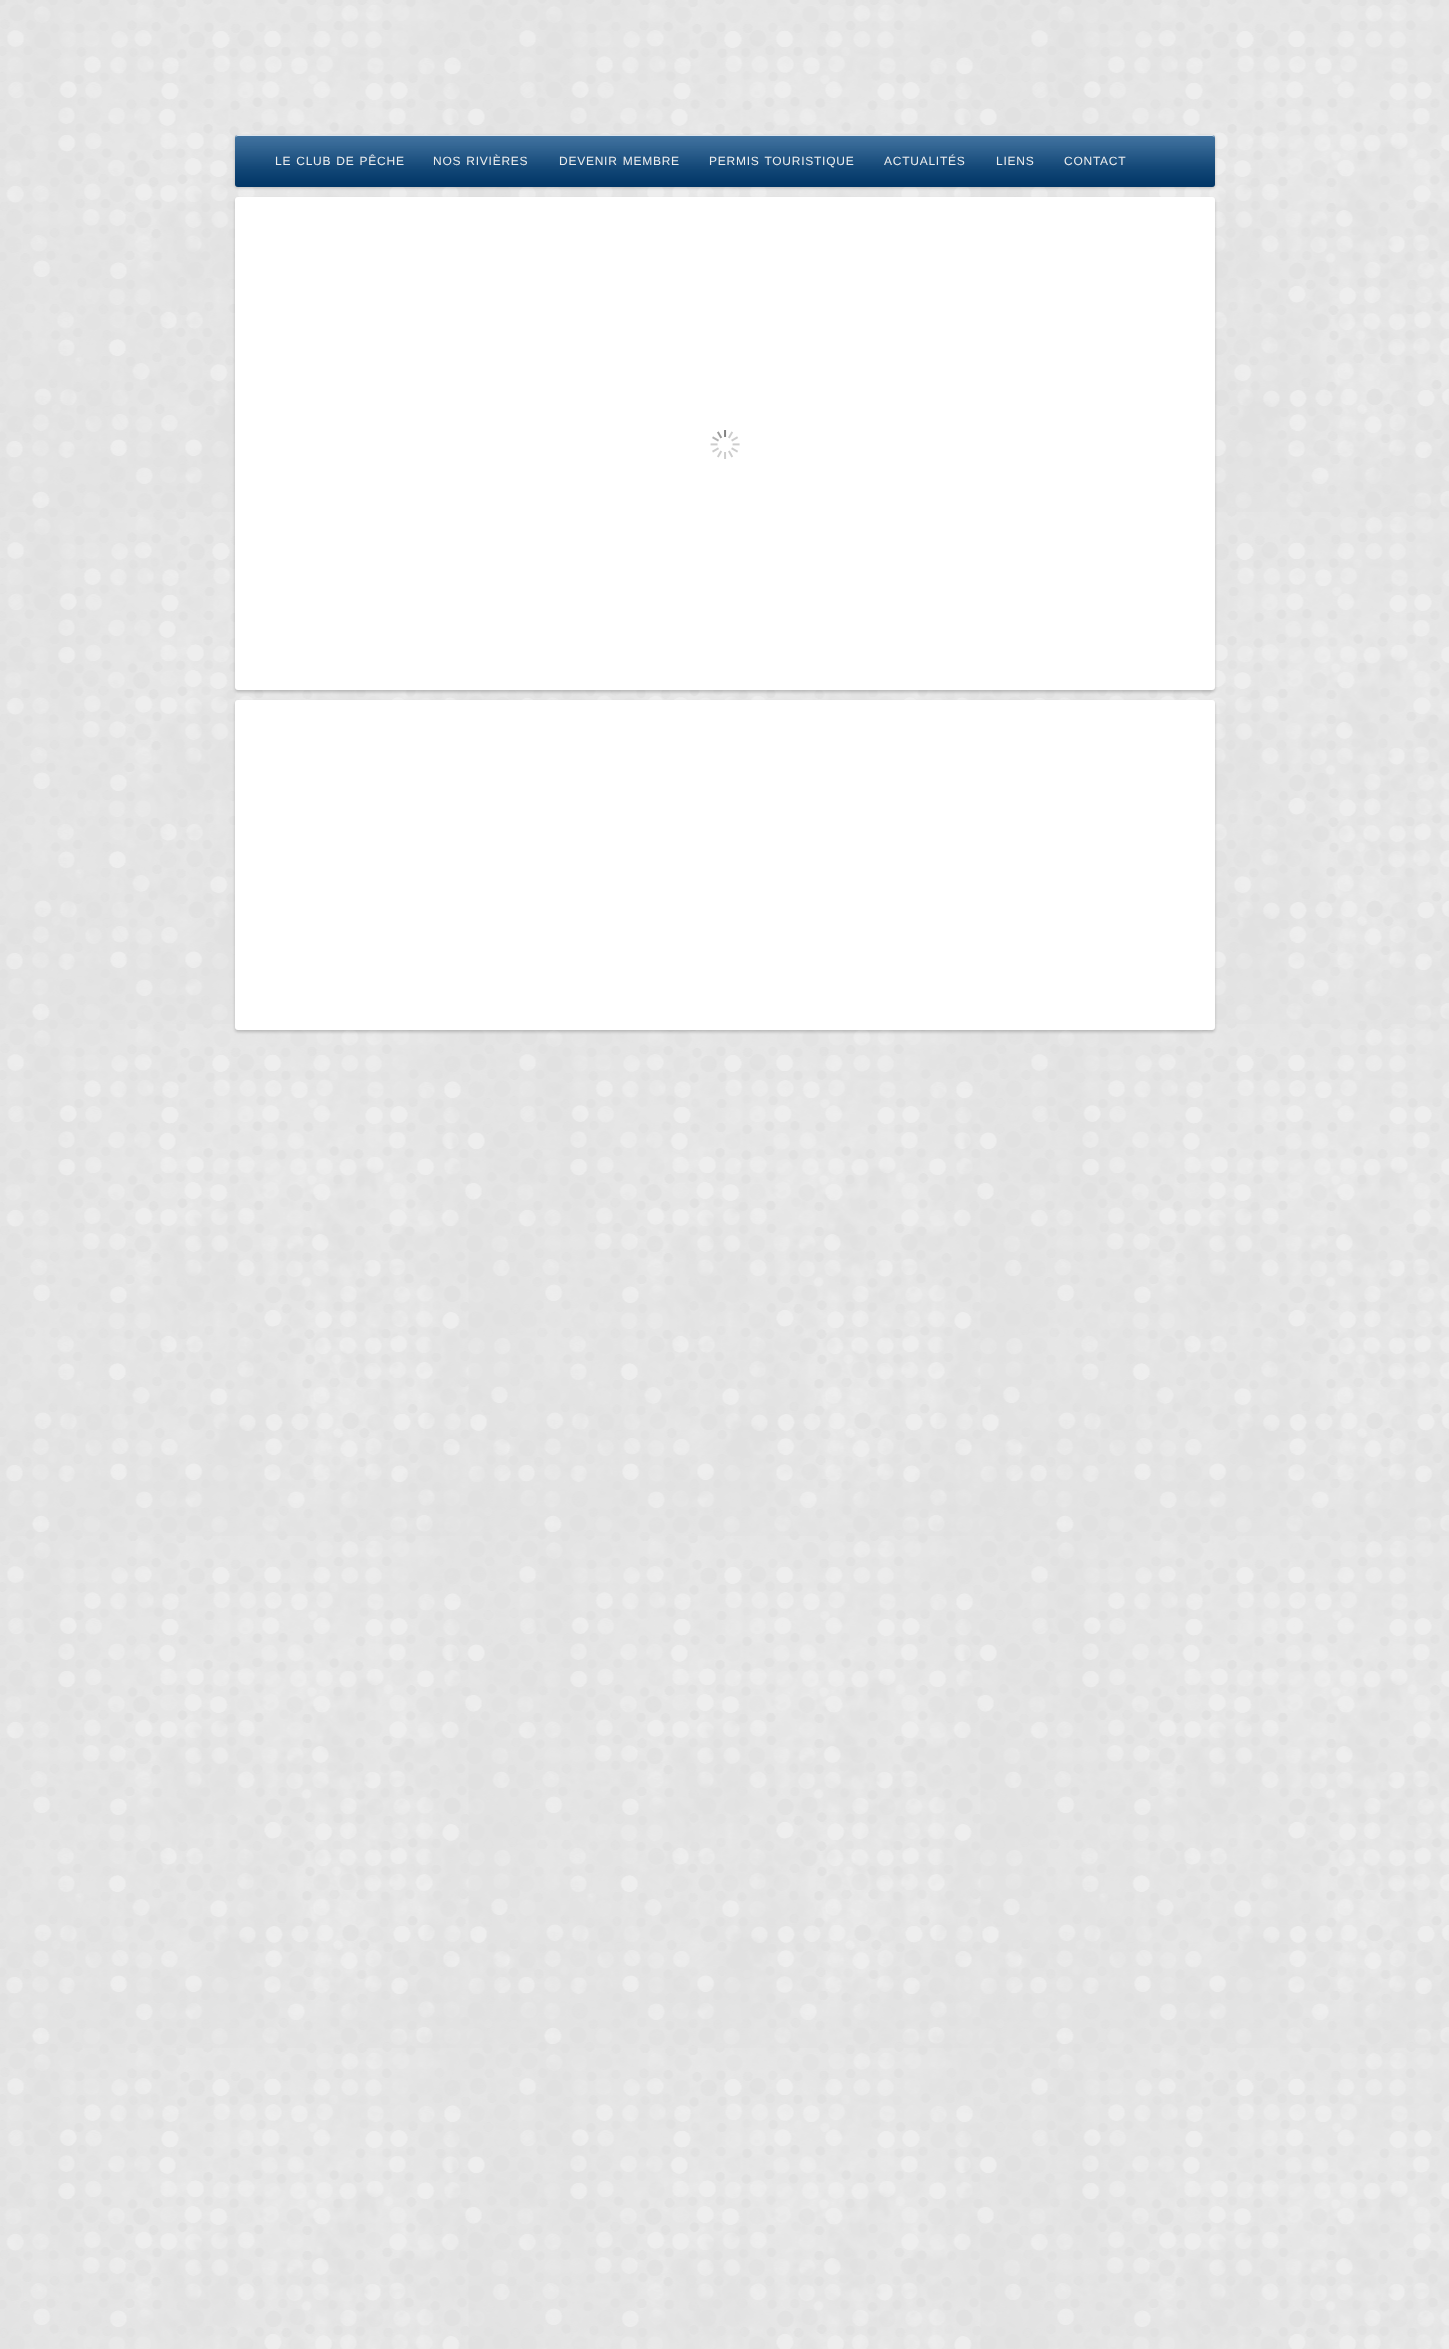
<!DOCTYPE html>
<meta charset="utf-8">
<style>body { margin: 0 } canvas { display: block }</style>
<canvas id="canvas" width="1449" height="2349"></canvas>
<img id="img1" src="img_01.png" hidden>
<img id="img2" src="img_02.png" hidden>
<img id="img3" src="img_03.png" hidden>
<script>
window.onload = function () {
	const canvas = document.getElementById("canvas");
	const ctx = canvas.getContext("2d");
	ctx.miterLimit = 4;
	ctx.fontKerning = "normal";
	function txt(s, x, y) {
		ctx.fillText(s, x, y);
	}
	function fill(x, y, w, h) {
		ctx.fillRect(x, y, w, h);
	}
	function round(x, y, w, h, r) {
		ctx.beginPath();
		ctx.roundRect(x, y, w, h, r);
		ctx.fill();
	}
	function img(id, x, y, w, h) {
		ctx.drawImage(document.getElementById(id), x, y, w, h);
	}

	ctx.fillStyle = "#DDDDDD";
	fill(0, 0, 1449, 2349);
	img("img1", 0, 0, 1449, 2349);
	ctx.fillStyle = "rgba(0, 0, 0, 0.2)";
	ctx.filter = "blur(1.5px)";
	ctx.beginPath();
	ctx.roundRect(235, 136, 980, 52, 3);
	ctx.fill();
	ctx.filter = "none";
	ctx.fillStyle = "#00437F";
	round(235, 135, 980, 52, 3);
	img("img2", 235, 135, 980, 52);
	ctx.fillStyle = "rgba(255, 255, 255, 0.81)";
	ctx.beginPath();
	ctx.moveTo(238, 136);
	ctx.lineTo(1212, 136);
	ctx.bezierCurveTo(1214, 136, 1215, 137, 1215, 139);
	ctx.bezierCurveTo(1215, 137, 1214, 135, 1212, 135);
	ctx.lineTo(238, 135);
	ctx.bezierCurveTo(236, 135, 235, 137, 235, 139);
	ctx.bezierCurveTo(235, 137, 236, 136, 238, 136);
	ctx.closePath();
	ctx.fill();
	ctx.fillStyle = "rgba(0, 0, 0, 0.2)";
	ctx.filter = "blur(1.5px)";
	ctx.beginPath();
	ctx.roundRect(235, 199, 980, 493, 3);
	ctx.fill();
	ctx.filter = "none";
	ctx.fillStyle = "#FFFFFF";
	round(235, 197, 980, 493, 3);
	img("img3", 710, 430, 30, 29);
	ctx.fillStyle = "rgba(0, 0, 0, 0.2)";
	ctx.filter = "blur(1.5px)";
	ctx.beginPath();
	ctx.roundRect(235, 702, 980, 330, 3);
	ctx.fill();
	ctx.filter = "none";
	ctx.fillStyle = "#FFFFFF";
	round(235, 700, 980, 330, 3);
	ctx.letterSpacing = "0.75px";
	ctx.wordSpacing = "1px";
	ctx.font = "12px Liberation Sans";
	ctx.fillStyle = "#EEEEEE";
	txt("LE CLUB DE PÊCHE", 275, 165);
	txt("NOS RIVIÈRES", 433, 165);
	txt("DEVENIR MEMBRE", 559, 165);
	txt("PERMIS TOURISTIQUE", 709, 165);
	ctx.wordSpacing = "0px";
	txt("ACTUALITÉS", 884, 165);
	txt("LIENS", 996, 165);
	txt("CONTACT", 1064, 165);
};
</script>
